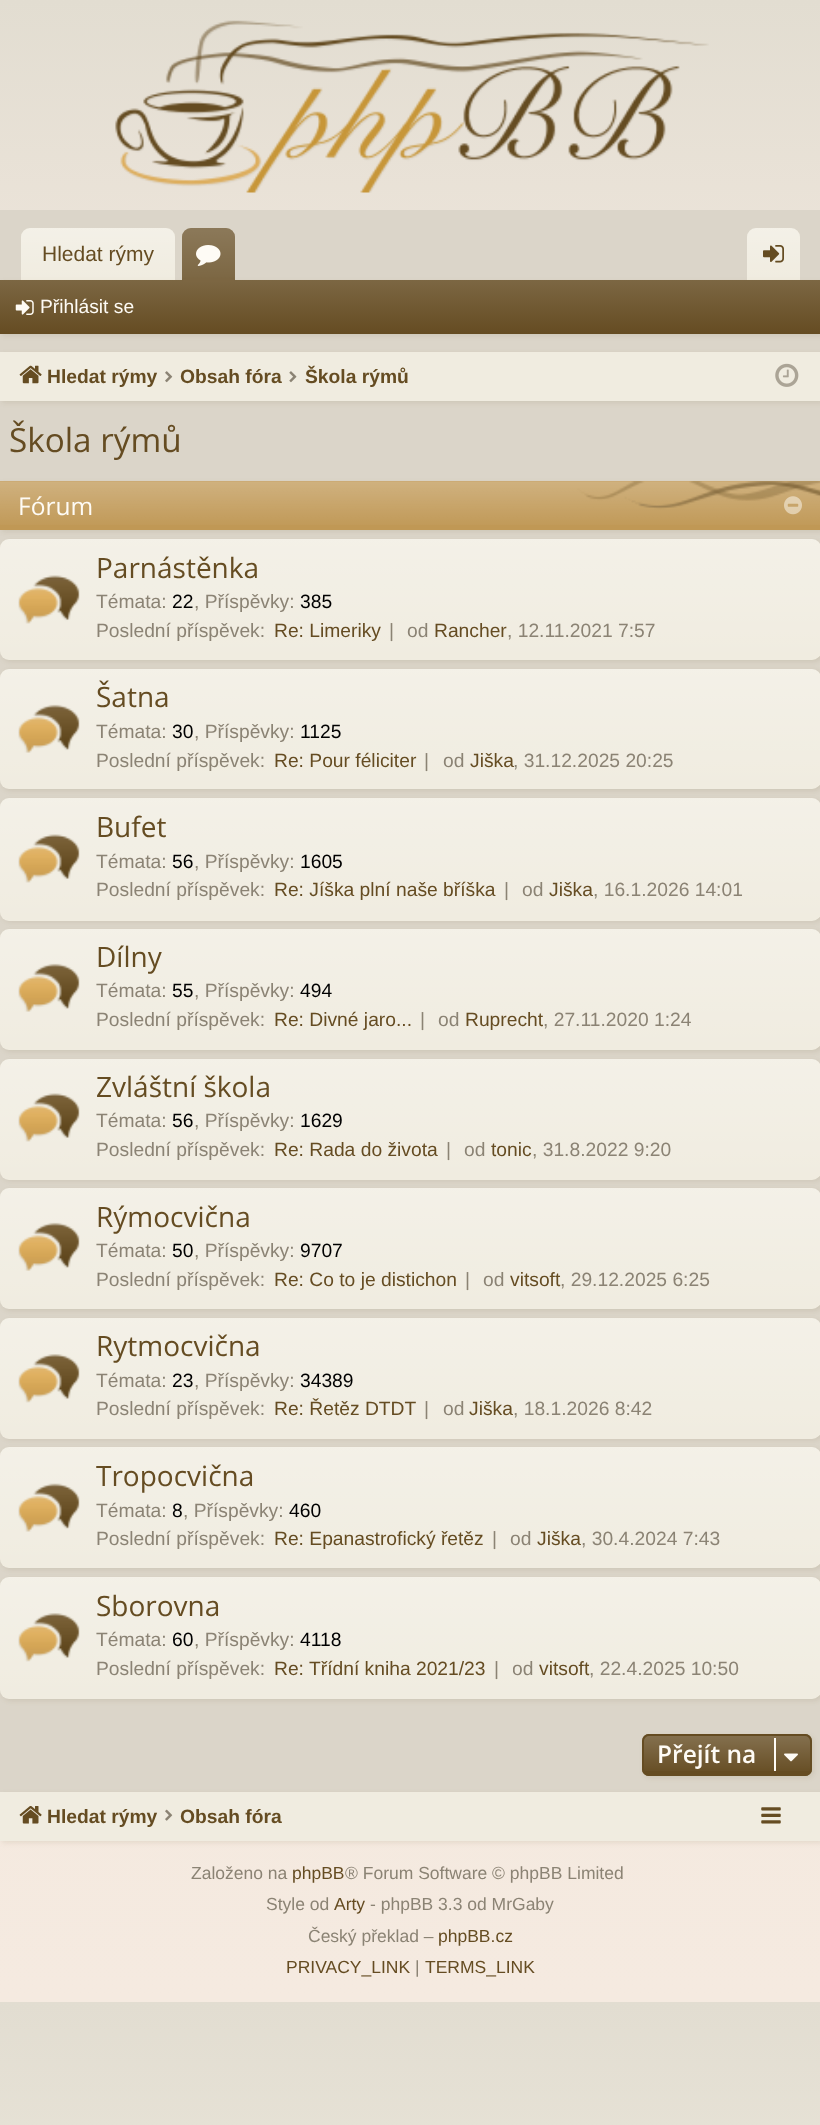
<!DOCTYPE html>
<meta charset="utf-8">
<style>body { margin: 0 } canvas { display: block }</style>
<canvas id="canvas" width="820" height="2125"></canvas>
<img id="img1" src="img_01.png" hidden>
<img id="img2" src="img_02.png" hidden>
<img id="img3" src="img_03.png" hidden>
<img id="img4" src="img_04.png" hidden>
<img id="img5" src="img_05.png" hidden>
<img id="img6" src="img_06.png" hidden>
<img id="img7" src="img_07.png" hidden>
<img id="img8" src="img_08.png" hidden>
<img id="img9" src="img_09.png" hidden>
<img id="img10" src="img_10.png" hidden>
<img id="img11" src="img_11.png" hidden>
<img id="img12" src="img_12.png" hidden>
<img id="img13" src="img_13.png" hidden>
<img id="img14" src="img_14.png" hidden>
<img id="img15" src="img_15.png" hidden>
<img id="img16" src="img_16.png" hidden>
<img id="img17" src="img_17.png" hidden>
<img id="img18" src="img_18.png" hidden>
<img id="img19" src="img_19.png" hidden>
<img id="img20" src="img_20.png" hidden>
<img id="img21" src="img_21.png" hidden>
<img id="img22" src="img_22.png" hidden>
<script>
window.onload = function () {
	const canvas = document.getElementById("canvas");
	const ctx = canvas.getContext("2d");
	ctx.miterLimit = 4;
	ctx.fontKerning = "normal";
	function txt(s, x, y) {
		ctx.fillText(s, x, y);
	}
	function fill(x, y, w, h) {
		ctx.fillRect(x, y, w, h);
	}
	function round(x, y, w, h, r) {
		ctx.beginPath();
		ctx.roundRect(x, y, w, h, r);
		ctx.fill();
	}
	function img(id, x, y, w, h) {
		ctx.drawImage(document.getElementById(id), x, y, w, h);
	}
	let gradient;

	ctx.fillStyle = "#FFFFFF";
	fill(0, 0, 820, 2125);
	gradient = ctx.createLinearGradient(410, 2002, 410, 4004);
	gradient.addColorStop(0, "#E2DDD1");
	gradient.addColorStop(0.17, "#ECE8DC");
	gradient.addColorStop(1, "#F0ECE0");
	ctx.fillStyle = gradient;
	fill(0, 2002, 820, 123);
	gradient = ctx.createLinearGradient(410, 0, 410, 2002);
	gradient.addColorStop(0, "#E2DDD1");
	gradient.addColorStop(0.17, "#EFE6DC");
	gradient.addColorStop(1, "#F5EAE0");
	ctx.fillStyle = gradient;
	fill(0, 0, 820, 2002);
	img("img1", 115, 20, 594, 173);
	ctx.fillStyle = "#DBD5C9";
	fill(0, 210, 820, 1582);
	ctx.fillStyle = "#F0ECE0";
	ctx.beginPath();
	ctx.roundRect(21, 228, 154, 52, [9, 9, 0, 0]);
	ctx.fill();
	gradient = ctx.createLinearGradient(98, 228, 98, 280);
	gradient.addColorStop(0, "rgba(255, 255, 255, 0.25)");
	gradient.addColorStop(1, "rgba(255, 255, 255, 0)");
	ctx.fillStyle = gradient;
	ctx.beginPath();
	ctx.roundRect(21, 228, 154, 52, [9, 9, 0, 0]);
	ctx.fill();
	ctx.fillStyle = "#654C22";
	ctx.beginPath();
	ctx.roundRect(182, 228, 53, 52, [9, 9, 0, 0]);
	ctx.fill();
	gradient = ctx.createLinearGradient(208, 228, 208, 280);
	gradient.addColorStop(0, "rgba(255, 255, 255, 0.25)");
	gradient.addColorStop(1, "rgba(255, 255, 255, 0.15)");
	ctx.fillStyle = gradient;
	ctx.beginPath();
	ctx.roundRect(182, 228, 53, 52, [9, 9, 0, 0]);
	ctx.fill();
	img("img2", 196, 245, 25, 21);
	ctx.fillStyle = "#F0ECE0";
	ctx.beginPath();
	ctx.roundRect(747, 228, 53, 52, [9, 9, 0, 0]);
	ctx.fill();
	gradient = ctx.createLinearGradient(774, 228, 774, 280);
	gradient.addColorStop(0, "rgba(255, 255, 255, 0.25)");
	gradient.addColorStop(1, "rgba(255, 255, 255, 0)");
	ctx.fillStyle = gradient;
	ctx.beginPath();
	ctx.roundRect(747, 228, 53, 52, [9, 9, 0, 0]);
	ctx.fill();
	ctx.fillStyle = "rgba(101, 76, 34, 0.1)";
	ctx.filter = "blur(2.5px)";
	ctx.beginPath();
	ctx.rect(2, 282, 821, 54);
	ctx.fill();
	ctx.filter = "none";
	gradient = ctx.createLinearGradient(410, 280, 410, 334);
	gradient.addColorStop(0, "#7C6743");
	gradient.addColorStop(1, "#654C22");
	ctx.fillStyle = gradient;
	fill(0, 280, 820, 54);
	ctx.fillStyle = "#654C22";
	ctx.beginPath();
	ctx.roundRect(182, 278, 53, 4, [4, 4, 0, 0]);
	ctx.fill();
	ctx.fillStyle = "rgba(255, 255, 255, 0.15)";
	ctx.beginPath();
	ctx.roundRect(182, 278, 53, 4, [4, 4, 0, 0]);
	ctx.fill();
	img("img3", 763, 245, 21, 18);
	img("img4", 15, 300, 19, 15);
	ctx.fillStyle = "rgba(101, 76, 34, 0.1)";
	ctx.filter = "blur(2.5px)";
	ctx.beginPath();
	ctx.rect(2, 354, 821, 49);
	ctx.fill();
	ctx.filter = "none";
	ctx.fillStyle = "#F0ECE0";
	fill(0, 352, 820, 49);
	img("img5", 19, 365, 23, 19);
	img("img6", 165, 371, 8, 12);
	img("img7", 289, 371, 8, 12);
	img("img8", 775, 363, 24, 24);
	ctx.fillStyle = "rgba(101, 76, 34, 0.1)";
	ctx.filter = "blur(2.5px)";
	ctx.beginPath();
	ctx.roundRect(2, 541, 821, 121, 9);
	ctx.fill();
	ctx.filter = "none";
	ctx.fillStyle = "#F0ECE0";
	round(0, 539, 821, 121, 9);
	gradient = ctx.createLinearGradient(410, 539, 410, 660);
	gradient.addColorStop(0, "rgba(255, 255, 255, 0.25)");
	gradient.addColorStop(1, "rgba(255, 255, 255, 0)");
	ctx.fillStyle = gradient;
	round(0, 539, 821, 121, 9);
	ctx.fillStyle = "rgba(101, 76, 34, 0.1)";
	ctx.filter = "blur(2.5px)";
	ctx.beginPath();
	ctx.rect(2, 483, 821, 49);
	ctx.fill();
	ctx.filter = "none";
	ctx.fillStyle = "#C09855";
	fill(0, 481, 820, 49);
	img("img9", 0, 481, 820, 44);
	img("img10", 784, 496, 18, 19);
	img("img11", 18, 575, 62, 49);
	ctx.fillStyle = "rgba(101, 76, 34, 0.1)";
	ctx.filter = "blur(2.5px)";
	ctx.beginPath();
	ctx.roundRect(2, 670, 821, 121, 9);
	ctx.fill();
	ctx.filter = "none";
	ctx.fillStyle = "#F0ECE0";
	round(0, 669, 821, 120, 9);
	gradient = ctx.createLinearGradient(410, 669, 410, 789);
	gradient.addColorStop(0, "rgba(255, 255, 255, 0.25)");
	gradient.addColorStop(1, "rgba(255, 255, 255, 0)");
	ctx.fillStyle = gradient;
	round(0, 669, 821, 120, 9);
	img("img12", 18, 704, 62, 49);
	ctx.fillStyle = "rgba(101, 76, 34, 0.1)";
	ctx.filter = "blur(2.5px)";
	ctx.beginPath();
	ctx.roundRect(2, 800, 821, 122, 9);
	ctx.fill();
	ctx.filter = "none";
	ctx.fillStyle = "#F0ECE0";
	round(0, 798, 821, 123, 9);
	gradient = ctx.createLinearGradient(410, 798, 410, 921);
	gradient.addColorStop(0, "rgba(255, 255, 255, 0.25)");
	gradient.addColorStop(1, "rgba(255, 255, 255, 0)");
	ctx.fillStyle = gradient;
	round(0, 798, 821, 123, 9);
	img("img13", 18, 834, 62, 49);
	ctx.fillStyle = "rgba(101, 76, 34, 0.1)";
	ctx.filter = "blur(2.5px)";
	ctx.beginPath();
	ctx.roundRect(2, 931, 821, 121, 9);
	ctx.fill();
	ctx.filter = "none";
	ctx.fillStyle = "#F0ECE0";
	round(0, 929, 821, 121, 9);
	gradient = ctx.createLinearGradient(410, 929, 410, 1050);
	gradient.addColorStop(0, "rgba(255, 255, 255, 0.25)");
	gradient.addColorStop(1, "rgba(255, 255, 255, 0)");
	ctx.fillStyle = gradient;
	round(0, 929, 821, 121, 9);
	img("img14", 18, 963, 62, 49);
	ctx.fillStyle = "rgba(101, 76, 34, 0.1)";
	ctx.filter = "blur(2.5px)";
	ctx.beginPath();
	ctx.roundRect(2, 1061, 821, 120, 9);
	ctx.fill();
	ctx.filter = "none";
	ctx.fillStyle = "#F0ECE0";
	round(0, 1059, 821, 121, 9);
	gradient = ctx.createLinearGradient(410, 1059, 410, 1180);
	gradient.addColorStop(0, "rgba(255, 255, 255, 0.25)");
	gradient.addColorStop(1, "rgba(255, 255, 255, 0)");
	ctx.fillStyle = gradient;
	round(0, 1059, 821, 121, 9);
	img("img15", 18, 1093, 62, 49);
	ctx.fillStyle = "rgba(101, 76, 34, 0.1)";
	ctx.filter = "blur(2.5px)";
	ctx.beginPath();
	ctx.roundRect(2, 1190, 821, 121, 9);
	ctx.fill();
	ctx.filter = "none";
	ctx.fillStyle = "#F0ECE0";
	round(0, 1188, 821, 121, 9);
	gradient = ctx.createLinearGradient(410, 1188, 410, 1309);
	gradient.addColorStop(0, "rgba(255, 255, 255, 0.25)");
	gradient.addColorStop(1, "rgba(255, 255, 255, 0)");
	ctx.fillStyle = gradient;
	round(0, 1188, 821, 121, 9);
	img("img14", 18, 1222, 62, 49);
	ctx.fillStyle = "rgba(101, 76, 34, 0.1)";
	ctx.filter = "blur(2.5px)";
	ctx.beginPath();
	ctx.roundRect(2, 1320, 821, 120, 9);
	ctx.fill();
	ctx.filter = "none";
	ctx.fillStyle = "#F0ECE0";
	round(0, 1318, 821, 121, 9);
	gradient = ctx.createLinearGradient(410, 1318, 410, 1439);
	gradient.addColorStop(0, "rgba(255, 255, 255, 0.25)");
	gradient.addColorStop(1, "rgba(255, 255, 255, 0)");
	ctx.fillStyle = gradient;
	round(0, 1318, 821, 121, 9);
	img("img16", 18, 1354, 62, 49);
	ctx.fillStyle = "rgba(101, 76, 34, 0.1)";
	ctx.filter = "blur(2.5px)";
	ctx.beginPath();
	ctx.roundRect(2, 1449, 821, 121, 9);
	ctx.fill();
	ctx.filter = "none";
	ctx.fillStyle = "#F0ECE0";
	round(0, 1447, 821, 121, 9);
	gradient = ctx.createLinearGradient(410, 1447, 410, 1568);
	gradient.addColorStop(0, "rgba(255, 255, 255, 0.25)");
	gradient.addColorStop(1, "rgba(255, 255, 255, 0)");
	ctx.fillStyle = gradient;
	round(0, 1447, 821, 121, 9);
	img("img17", 18, 1483, 62, 49);
	ctx.fillStyle = "rgba(101, 76, 34, 0.1)";
	ctx.filter = "blur(2.5px)";
	ctx.beginPath();
	ctx.roundRect(2, 1579, 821, 122, 9);
	ctx.fill();
	ctx.filter = "none";
	ctx.fillStyle = "#F0ECE0";
	round(0, 1577, 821, 122, 9);
	gradient = ctx.createLinearGradient(410, 1577, 410, 1699);
	gradient.addColorStop(0, "rgba(255, 255, 255, 0.25)");
	gradient.addColorStop(1, "rgba(255, 255, 255, 0)");
	ctx.fillStyle = gradient;
	round(0, 1577, 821, 122, 9);
	img("img18", 18, 1613, 62, 49);
	ctx.fillStyle = "rgba(101, 76, 34, 0.1)";
	ctx.filter = "blur(2.5px)";
	ctx.beginPath();
	ctx.roundRect(644, 1736, 170, 42, 7);
	ctx.fill();
	ctx.filter = "none";
	ctx.fillStyle = "#654C22";
	round(642, 1734, 170, 42, 7);
	ctx.save();
	ctx.beginPath();
	ctx.roundRect(642, 1734, 170, 42, 7);
	ctx.clip();
	gradient = ctx.createLinearGradient(727, 1736, 727, 1775);
	gradient.addColorStop(0, "rgba(255, 255, 255, 0.2)");
	gradient.addColorStop(1, "rgba(255, 255, 255, 0)");
	ctx.fillStyle = gradient;
	fill(642, 1736, 170, 35);
	ctx.restore();
	ctx.beginPath();
	ctx.roundRect(643, 1735, 168, 40, 6);
	ctx.strokeStyle = "#654C22";
	ctx.lineWidth = 2;
	ctx.stroke();
	ctx.fillStyle = "#FEFBF5";
	fill(774, 1738, 2, 33);
	img("img19", 784, 1753, 14, 9);
	ctx.fillStyle = "rgba(101, 76, 34, 0.1)";
	ctx.filter = "blur(2.5px)";
	ctx.beginPath();
	ctx.rect(2, 1794, 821, 49);
	ctx.fill();
	ctx.filter = "none";
	ctx.fillStyle = "#F0ECE0";
	fill(0, 1792, 820, 49);
	img("img20", 19, 1806, 23, 18);
	img("img21", 165, 1809, 8, 12);
	img("img22", 761, 1807, 20, 17);
	ctx.font = "21px Liberation Sans";
	ctx.fillStyle = "#654C22";
	txt("Hledat rýmy", 42, 261);
	ctx.font = "19.25px Liberation Sans";
	ctx.fillStyle = "#FEFBF5";
	txt("Přihlásit se", 40, 313);
	ctx.font = "bold 19.25px Liberation Sans";
	ctx.fillStyle = "#654C22";
	txt("Hledat rýmy", 47, 383);
	txt("Obsah fóra", 180, 383);
	txt("Škola rýmů", 305, 383);
	ctx.font = "33.25px Open Sans";
	txt("Škola rýmů", 9, 452);
	ctx.font = "24.5px Open Sans";
	ctx.fillStyle = "#FEFBF5";
	txt("Fórum", 18, 515);
	ctx.font = "28px Open Sans";
	ctx.fillStyle = "#654C22";
	txt("Parnástěnka", 96, 578);
	ctx.font = "19.25px Liberation Sans";
	ctx.fillStyle = "#8B8374";
	txt("Témata:", 96, 608);
	ctx.fillStyle = "#000000";
	txt("22", 172, 608);
	ctx.fillStyle = "#8B8374";
	txt(", Příspěvky:", 194, 608);
	ctx.fillStyle = "#000000";
	txt("385", 300, 608);
	ctx.fillStyle = "#8B8374";
	txt("Poslední příspěvek:", 96, 637);
	ctx.fillStyle = "#654C22";
	txt("Re: Limeriky", 274, 637);
	ctx.fillStyle = "#8B8374";
	txt("|", 389, 637);
	txt("od", 407, 637);
	ctx.fillStyle = "#654C22";
	txt("Rancher", 434, 637);
	ctx.fillStyle = "#8B8374";
	txt(", 12.11.2021 7:57", 507, 637);
	ctx.font = "28px Open Sans";
	ctx.fillStyle = "#654C22";
	txt("Šatna", 96, 707);
	ctx.font = "19.25px Liberation Sans";
	ctx.fillStyle = "#8B8374";
	txt("Témata:", 96, 738);
	ctx.fillStyle = "#000000";
	txt("30", 172, 738);
	ctx.fillStyle = "#8B8374";
	txt(", Příspěvky:", 194, 738);
	ctx.fillStyle = "#000000";
	txt("1125", 300, 738);
	ctx.fillStyle = "#8B8374";
	txt("Poslední příspěvek:", 96, 767);
	ctx.fillStyle = "#654C22";
	txt("Re: Pour féliciter", 274, 767);
	ctx.fillStyle = "#8B8374";
	txt("|", 424, 767);
	txt("od", 443, 767);
	ctx.fillStyle = "#654C22";
	txt("Jiška", 470, 767);
	ctx.fillStyle = "#8B8374";
	txt(", 31.12.2025 20:25", 513, 767);
	ctx.font = "28px Open Sans";
	ctx.fillStyle = "#654C22";
	txt("Bufet", 96, 837);
	ctx.font = "19.25px Liberation Sans";
	ctx.fillStyle = "#8B8374";
	txt("Témata:", 96, 868);
	ctx.fillStyle = "#000000";
	txt("56", 172, 868);
	ctx.fillStyle = "#8B8374";
	txt(", Příspěvky:", 194, 868);
	ctx.fillStyle = "#000000";
	txt("1605", 300, 868);
	ctx.fillStyle = "#8B8374";
	txt("Poslední příspěvek:", 96, 896);
	ctx.fillStyle = "#654C22";
	txt("Re: Jíška plní naše bříška", 274, 896);
	ctx.fillStyle = "#8B8374";
	txt("|", 504, 896);
	txt("od", 522, 896);
	ctx.fillStyle = "#654C22";
	txt("Jiška", 549, 896);
	ctx.fillStyle = "#8B8374";
	txt(", 16.1.2026 14:01", 593, 896);
	ctx.font = "28px Open Sans";
	ctx.fillStyle = "#654C22";
	txt("Dílny", 96, 967);
	ctx.font = "19.25px Liberation Sans";
	ctx.fillStyle = "#8B8374";
	txt("Témata:", 96, 997);
	ctx.fillStyle = "#000000";
	txt("55", 172, 997);
	ctx.fillStyle = "#8B8374";
	txt(", Příspěvky:", 194, 997);
	ctx.fillStyle = "#000000";
	txt("494", 300, 997);
	ctx.fillStyle = "#8B8374";
	txt("Poslední příspěvek:", 96, 1026);
	ctx.fillStyle = "#654C22";
	txt("Re: Divné jaro...", 274, 1026);
	ctx.fillStyle = "#8B8374";
	txt("|", 420, 1026);
	txt("od", 438, 1026);
	ctx.fillStyle = "#654C22";
	txt("Ruprecht", 465, 1026);
	ctx.fillStyle = "#8B8374";
	txt(", 27.11.2020 1:24", 543, 1026);
	ctx.font = "28px Open Sans";
	ctx.fillStyle = "#654C22";
	txt("Zvláštní škola", 96, 1097);
	ctx.font = "19.25px Liberation Sans";
	ctx.fillStyle = "#8B8374";
	txt("Témata:", 96, 1127);
	ctx.fillStyle = "#000000";
	txt("56", 172, 1127);
	ctx.fillStyle = "#8B8374";
	txt(", Příspěvky:", 194, 1127);
	ctx.fillStyle = "#000000";
	txt("1629", 300, 1127);
	ctx.fillStyle = "#8B8374";
	txt("Poslední příspěvek:", 96, 1156);
	ctx.fillStyle = "#654C22";
	txt("Re: Rada do života", 274, 1156);
	ctx.fillStyle = "#8B8374";
	txt("|", 446, 1156);
	txt("od", 464, 1156);
	ctx.fillStyle = "#654C22";
	txt("tonic", 491, 1156);
	ctx.fillStyle = "#8B8374";
	txt(", 31.8.2022 9:20", 532, 1156);
	ctx.font = "28px Open Sans";
	ctx.fillStyle = "#654C22";
	txt("Rýmocvična", 96, 1227);
	ctx.font = "19.25px Liberation Sans";
	ctx.fillStyle = "#8B8374";
	txt("Témata:", 96, 1257);
	ctx.fillStyle = "#000000";
	txt("50", 172, 1257);
	ctx.fillStyle = "#8B8374";
	txt(", Příspěvky:", 194, 1257);
	ctx.fillStyle = "#000000";
	txt("9707", 300, 1257);
	ctx.fillStyle = "#8B8374";
	txt("Poslední příspěvek:", 96, 1286);
	ctx.fillStyle = "#654C22";
	txt("Re: Co to je distichon", 274, 1286);
	ctx.fillStyle = "#8B8374";
	txt("|", 465, 1286);
	txt("od", 483, 1286);
	ctx.fillStyle = "#654C22";
	txt("vitsoft", 510, 1286);
	ctx.fillStyle = "#8B8374";
	txt(", 29.12.2025 6:25", 560, 1286);
	ctx.font = "28px Open Sans";
	ctx.fillStyle = "#654C22";
	txt("Rytmocvična", 96, 1356);
	ctx.font = "19.25px Liberation Sans";
	ctx.fillStyle = "#8B8374";
	txt("Témata:", 96, 1387);
	ctx.fillStyle = "#000000";
	txt("23", 172, 1387);
	ctx.fillStyle = "#8B8374";
	txt(", Příspěvky:", 194, 1387);
	ctx.fillStyle = "#000000";
	txt("34389", 300, 1387);
	ctx.fillStyle = "#8B8374";
	txt("Poslední příspěvek:", 96, 1415);
	ctx.fillStyle = "#654C22";
	txt("Re: Řetěz DTDT", 274, 1415);
	ctx.fillStyle = "#8B8374";
	txt("|", 424, 1415);
	txt("od", 443, 1415);
	ctx.fillStyle = "#654C22";
	txt("Jiška", 469, 1415);
	ctx.fillStyle = "#8B8374";
	txt(", 18.1.2026 8:42", 513, 1415);
	ctx.font = "28px Open Sans";
	ctx.fillStyle = "#654C22";
	txt("Tropocvična", 96, 1486);
	ctx.font = "19.25px Liberation Sans";
	ctx.fillStyle = "#8B8374";
	txt("Témata:", 96, 1517);
	ctx.fillStyle = "#000000";
	txt("8", 172, 1517);
	ctx.fillStyle = "#8B8374";
	txt(", Příspěvky:", 183, 1517);
	ctx.fillStyle = "#000000";
	txt("460", 289, 1517);
	ctx.fillStyle = "#8B8374";
	txt("Poslední příspěvek:", 96, 1545);
	ctx.fillStyle = "#654C22";
	txt("Re: Epanastrofický řetěz", 274, 1545);
	ctx.fillStyle = "#8B8374";
	txt("|", 492, 1545);
	txt("od", 510, 1545);
	ctx.fillStyle = "#654C22";
	txt("Jiška", 537, 1545);
	ctx.fillStyle = "#8B8374";
	txt(", 30.4.2024 7:43", 581, 1545);
	ctx.font = "28px Open Sans";
	ctx.fillStyle = "#654C22";
	txt("Sborovna", 96, 1616);
	ctx.font = "19.25px Liberation Sans";
	ctx.fillStyle = "#8B8374";
	txt("Témata:", 96, 1646);
	ctx.fillStyle = "#000000";
	txt("60", 172, 1646);
	ctx.fillStyle = "#8B8374";
	txt(", Příspěvky:", 194, 1646);
	ctx.fillStyle = "#000000";
	txt("4118", 300, 1646);
	ctx.fillStyle = "#8B8374";
	txt("Poslední příspěvek:", 96, 1675);
	ctx.fillStyle = "#654C22";
	txt("Re: Třídní kniha 2021/23", 274, 1675);
	ctx.fillStyle = "#8B8374";
	txt("|", 494, 1675);
	ctx.save();
	ctx.beginPath();
	ctx.rect(513, 1657, 226, 23);
	ctx.clip();
	txt("od", 512, 1675);
	ctx.restore();
	ctx.fillStyle = "#654C22";
	txt("vitsoft", 539, 1675);
	ctx.fillStyle = "#8B8374";
	txt(", 22.4.2025 10:50", 589, 1675);
	ctx.font = "600 24.5px Open Sans";
	ctx.fillStyle = "#FEFBF5";
	txt("Přejít na", 657, 1763);
	ctx.font = "bold 19.25px Liberation Sans";
	ctx.fillStyle = "#654C22";
	txt("Hledat rýmy", 47, 1823);
	txt("Obsah fóra", 180, 1823);
	ctx.font = "17.5px Liberation Sans";
	ctx.fillStyle = "#8B8374";
	txt("Založeno na", 191, 1879);
	ctx.fillStyle = "#654C22";
	txt("phpBB", 292, 1879);
	ctx.fillStyle = "#8B8374";
	txt("® Forum Software © phpBB Limited", 345, 1879);
	txt("Style od", 266, 1910);
	ctx.fillStyle = "#654C22";
	txt("Arty", 334, 1910);
	ctx.fillStyle = "#8B8374";
	txt("- phpBB 3.3 od MrGaby", 370, 1910);
	txt("Český překlad –", 308, 1942);
	ctx.fillStyle = "#654C22";
	txt("phpBB.cz", 438, 1942);
	txt("PRIVACY_LINK", 286, 1973);
	ctx.fillStyle = "#8B8374";
	txt("|", 415, 1973);
	ctx.fillStyle = "#654C22";
	txt("TERMS_LINK", 425, 1973);
};
</script>
